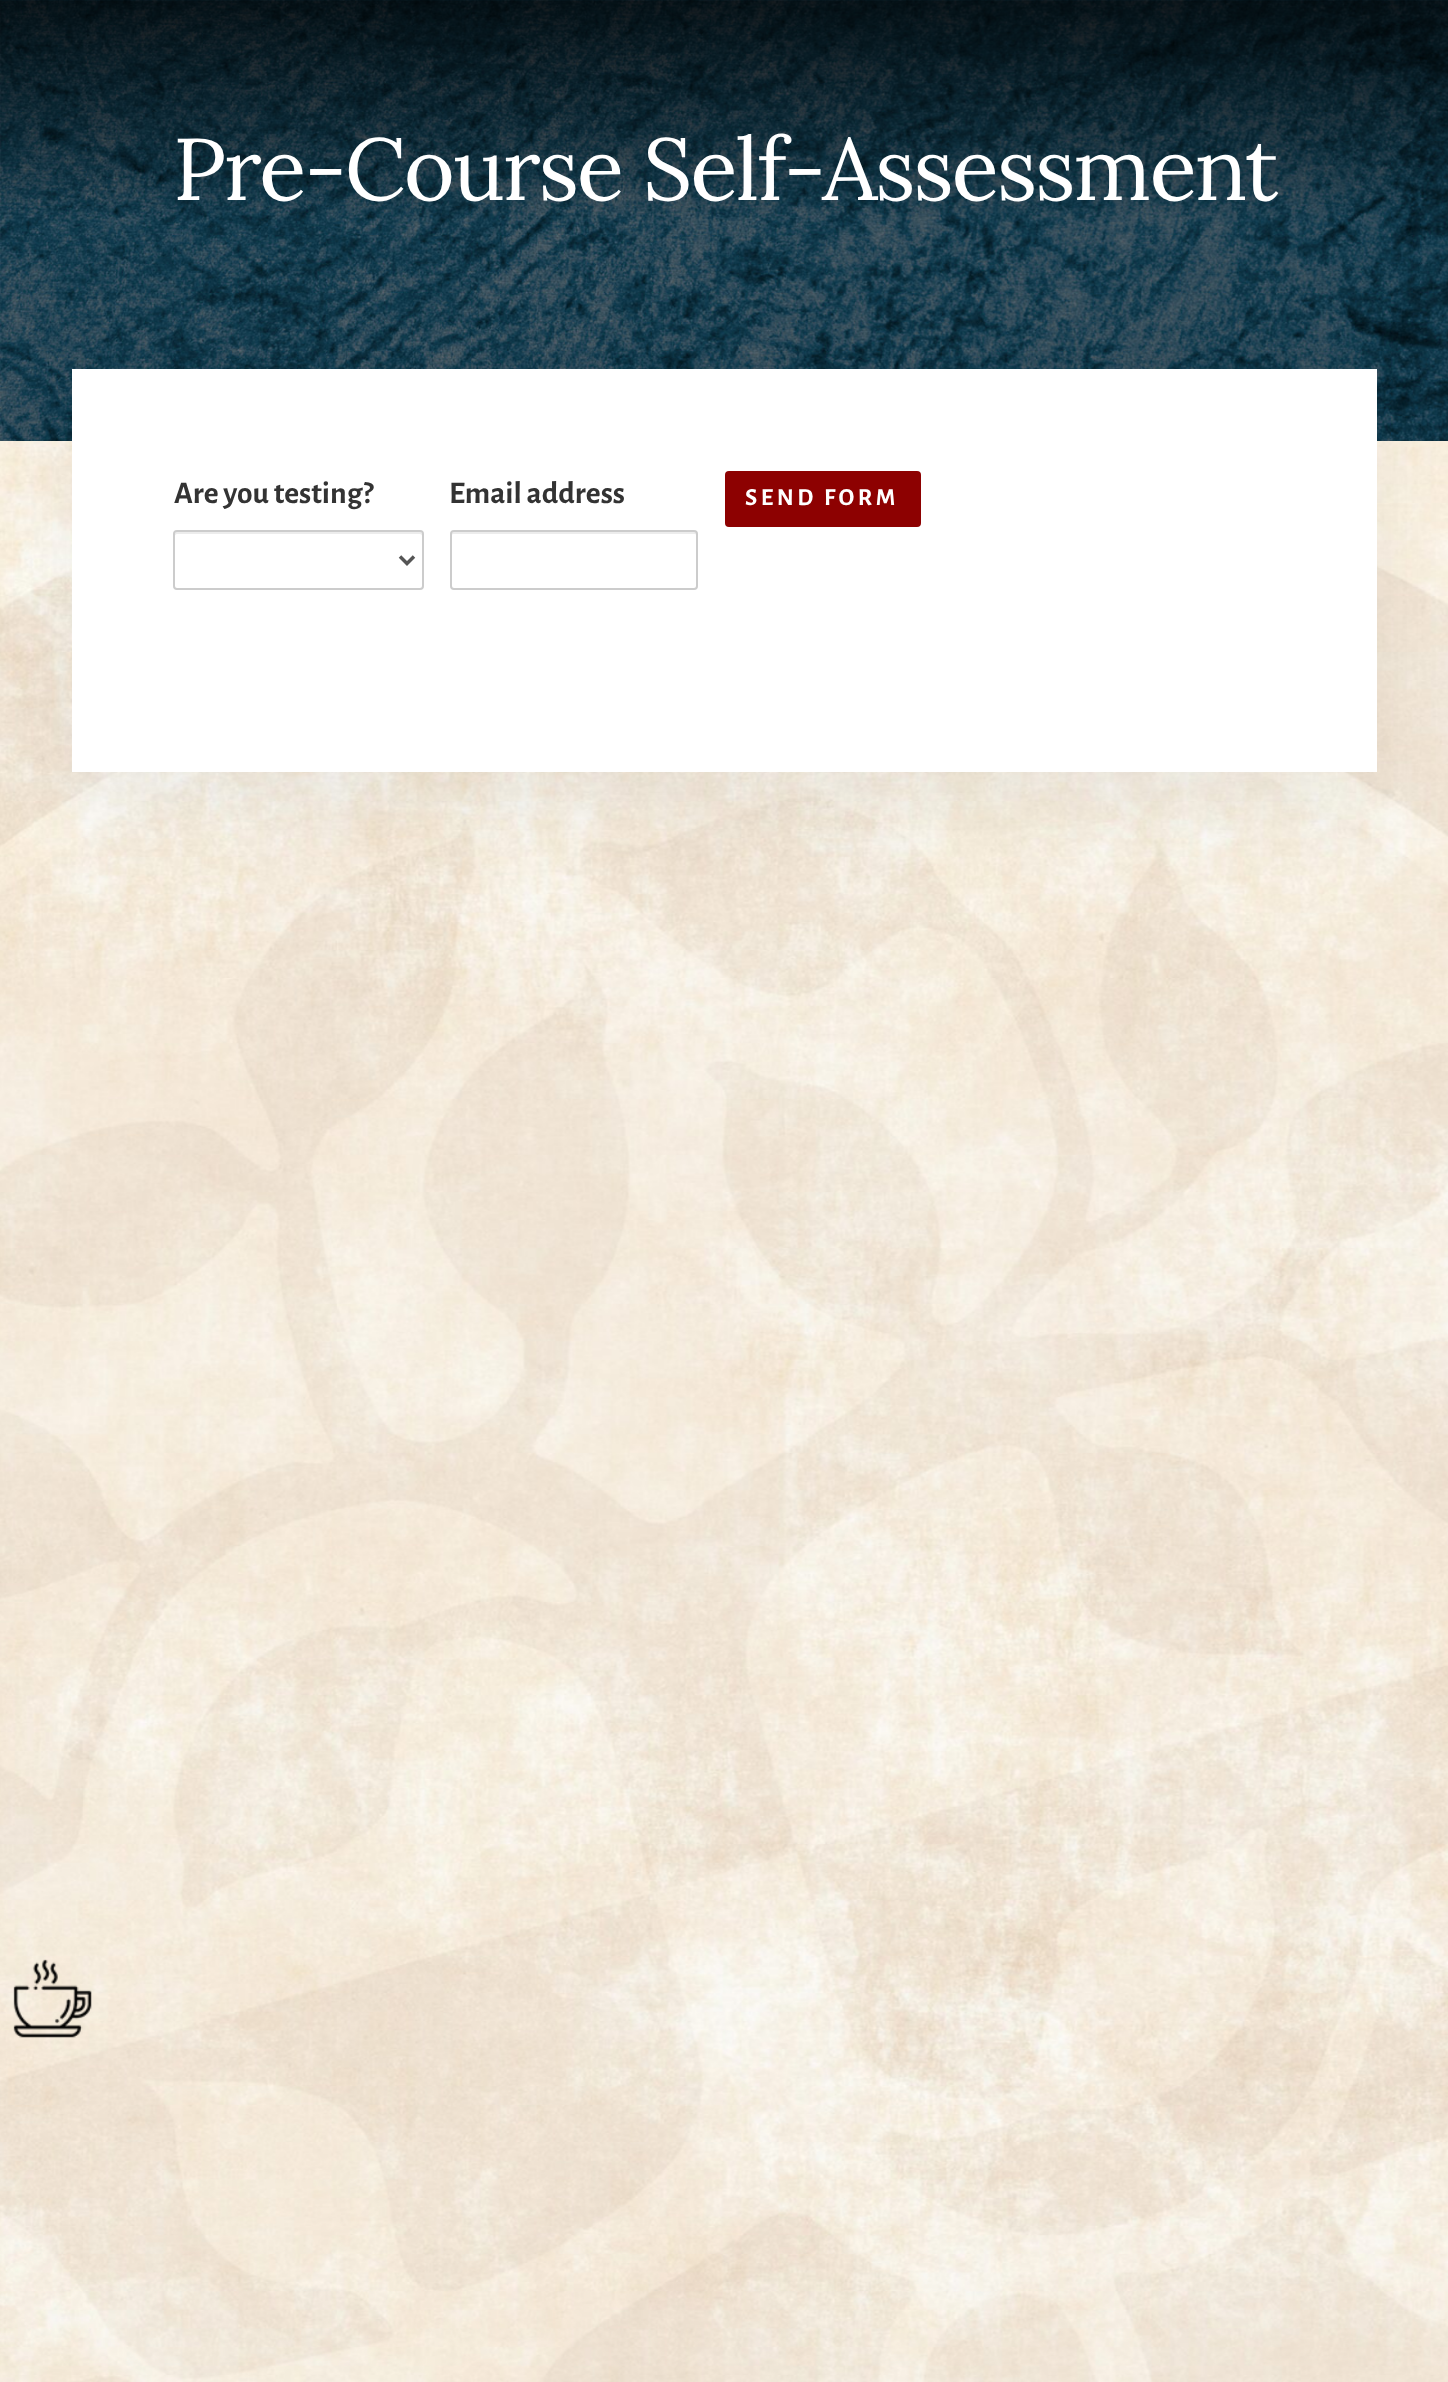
<!DOCTYPE html>
<meta charset="utf-8">
<style>body { margin: 0 } canvas { display: block }</style>
<canvas id="canvas" width="1448" height="2382"></canvas>
<img id="img1" src="img_01.png" hidden>
<img id="img2" src="img_02.png" hidden>
<img id="img3" src="img_03.png" hidden>
<script>
window.onload = function () {
	const canvas = document.getElementById("canvas");
	const ctx = canvas.getContext("2d");
	ctx.miterLimit = 4;
	ctx.fontKerning = "normal";
	function txt(s, x, y) {
		ctx.fillText(s, x, y);
	}
	function fill(x, y, w, h) {
		ctx.fillRect(x, y, w, h);
	}
	function round(x, y, w, h, r) {
		ctx.beginPath();
		ctx.roundRect(x, y, w, h, r);
		ctx.fill();
	}
	function img(id, x, y, w, h) {
		ctx.drawImage(document.getElementById(id), x, y, w, h);
	}

	ctx.fillStyle = "#FFFFFF";
	fill(0, 0, 1448, 2382);
	img("img1", 0, 0, 1448, 441);
	img("img2", 0, 441, 1448, 1941);
	ctx.fillStyle = "rgba(0, 0, 0, 0.05)";
	ctx.filter = "blur(35px)";
	ctx.beginPath();
	ctx.rect(72, 413, 1305, 403);
	ctx.fill();
	ctx.filter = "none";
	ctx.fillStyle = "#FFFFFF";
	fill(72, 369, 1305, 403);
	ctx.fillStyle = "#ECECEC";
	ctx.beginPath();
	ctx.moveTo(177, 534);
	ctx.lineTo(420, 534);
	ctx.bezierCurveTo(421, 534, 422, 535, 422, 536);
	ctx.bezierCurveTo(422, 534, 422, 532, 420, 532);
	ctx.lineTo(177, 532);
	ctx.bezierCurveTo(175, 532, 175, 534, 175, 536);
	ctx.bezierCurveTo(175, 535, 176, 534, 177, 534);
	ctx.closePath();
	ctx.fill();
	ctx.beginPath();
	ctx.roundRect(174, 531, 249, 58, 3);
	ctx.strokeStyle = "#CCCCCC";
	ctx.lineWidth = 2;
	ctx.stroke();
	ctx.beginPath();
	ctx.moveTo(400, 556.5);
	ctx.lineTo(407, 563.5);
	ctx.lineTo(414, 556.5);
	ctx.strokeStyle = "#555555";
	ctx.lineWidth = 3.5;
	ctx.stroke();
	ctx.beginPath();
	ctx.moveTo(453, 534);
	ctx.lineTo(695, 534);
	ctx.bezierCurveTo(696, 534, 696, 535, 696, 536);
	ctx.lineTo(696, 588);
	ctx.bezierCurveTo(697, 587, 697, 587, 697, 586);
	ctx.lineTo(697, 534);
	ctx.bezierCurveTo(697, 533, 696, 532, 695, 532);
	ctx.lineTo(454, 532);
	ctx.bezierCurveTo(453, 532, 452, 533, 452, 534);
	ctx.lineTo(452, 536);
	ctx.bezierCurveTo(452, 535, 452, 534, 453, 534);
	ctx.closePath();
	ctx.fill();
	ctx.beginPath();
	ctx.roundRect(451, 531, 246, 58, 3);
	ctx.strokeStyle = "#CCCCCC";
	ctx.lineWidth = 2;
	ctx.stroke();
	ctx.fillStyle = "#8D0101";
	round(725, 471, 196, 56, 4);
	img("img3", 13, 1959, 79, 79);
	ctx.letterSpacing = "-2.2px";
	ctx.font = "87.5px Lora";
	ctx.fillStyle = "#FFFFFF";
	txt("Pre-Course Self-Assessment", 173, 200);
	ctx.letterSpacing = "0px";
	ctx.font = "bold 31.5px Alegreya Sans";
	ctx.fillStyle = "#333333";
	txt("Are you testing?", 174, 503);
	txt("Email address", 449, 503);
	ctx.letterSpacing = "3.5px";
	ctx.font = "bold 24.5px Alegreya Sans";
	ctx.fillStyle = "#FFFFFF";
	txt("SEND FORM", 745, 505);
};
</script>
